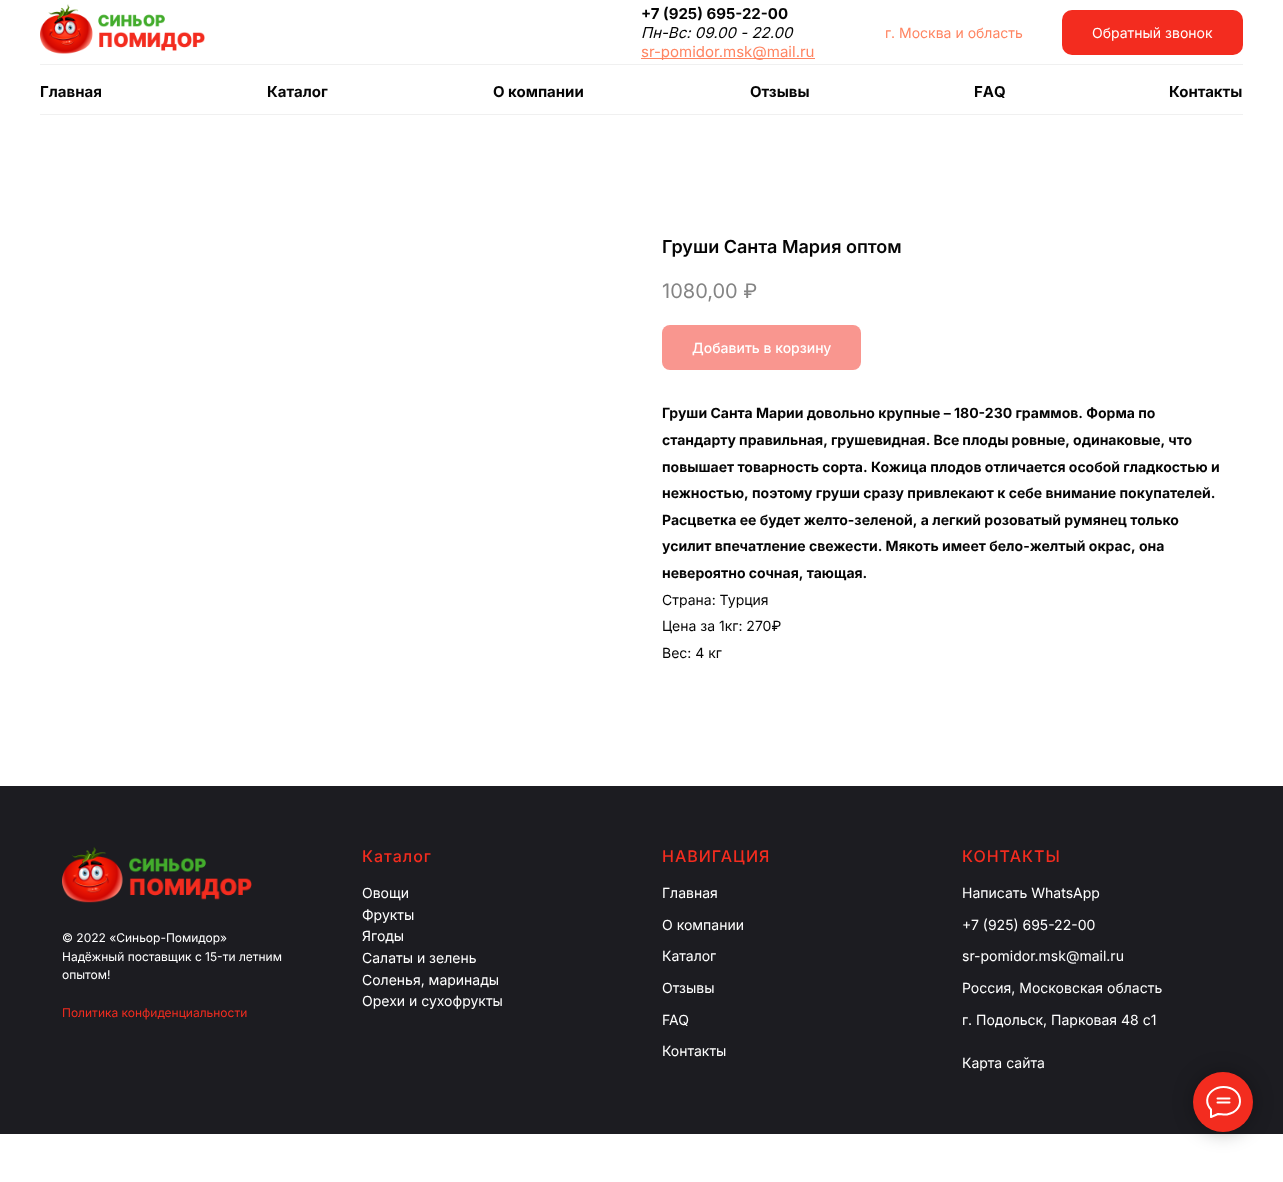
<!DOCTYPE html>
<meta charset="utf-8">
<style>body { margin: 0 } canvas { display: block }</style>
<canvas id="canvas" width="1283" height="1182"></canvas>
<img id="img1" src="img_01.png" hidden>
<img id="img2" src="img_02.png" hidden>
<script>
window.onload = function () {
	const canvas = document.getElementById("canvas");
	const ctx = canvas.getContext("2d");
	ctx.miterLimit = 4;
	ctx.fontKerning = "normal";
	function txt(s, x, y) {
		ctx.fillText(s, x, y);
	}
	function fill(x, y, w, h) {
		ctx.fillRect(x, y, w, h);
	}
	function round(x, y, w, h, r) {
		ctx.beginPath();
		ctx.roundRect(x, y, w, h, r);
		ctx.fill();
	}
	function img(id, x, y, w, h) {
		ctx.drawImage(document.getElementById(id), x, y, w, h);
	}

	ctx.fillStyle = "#FFFFFF";
	fill(0, 0, 1283, 1182);
	img("img1", 40, 4, 165, 50);
	ctx.fillStyle = "#FF8562";
	fill(641, 58, 174, 1);
	ctx.fillStyle = "#F32C1F";
	round(1062, 10, 181, 45, 10);
	ctx.fillStyle = "#F0F0F0";
	fill(40, 64, 1203, 1);
	fill(40, 114, 1203, 1);
	ctx.fillStyle = "#F9968F";
	round(662, 325, 199, 45, 8);
	ctx.fillStyle = "#1C1C21";
	fill(0, 786, 1283, 348);
	img("img2", 62, 847, 190, 56);
	ctx.fillStyle = "rgba(0, 0, 0, 0.3)";
	ctx.filter = "blur(10px)";
	ctx.beginPath();
	ctx.roundRect(1193, 1072, 60, 60, 30);
	ctx.fill();
	ctx.filter = "none";
	ctx.fillStyle = "#F32C1F";
	ctx.beginPath();
	ctx.arc(1223, 1102, 30, 0, Math.PI * 2);
	ctx.fill();
	ctx.beginPath();
	ctx.moveTo(1217.5, 1098.5);
	ctx.lineTo(1229.5, 1098.5);
	ctx.moveTo(1217.5, 1102.5);
	ctx.lineTo(1229.5, 1102.5);
	ctx.moveTo(1211, 1109.5);
	ctx.bezierCurveTo(1205.5, 1104, 1206, 1096, 1212, 1091);
	ctx.bezierCurveTo(1215, 1088.5, 1219.5, 1087, 1223.5, 1087);
	ctx.bezierCurveTo(1243, 1087, 1246.5, 1111, 1227, 1114.5);
	ctx.bezierCurveTo(1223, 1115, 1221.5, 1114, 1218, 1114);
	ctx.lineTo(1211, 1117);
	ctx.lineTo(1211, 1110);
	ctx.closePath();
	ctx.strokeStyle = "#FFFFFF";
	ctx.lineWidth = 2;
	ctx.lineCap = "round";
	ctx.lineJoin = "round";
	ctx.stroke();
	ctx.font = "bold 15px Inter";
	ctx.fillStyle = "#050505";
	txt("+7 (925) 695-22-00", 641, 19);
	ctx.font = "italic 15px Inter";
	txt("Пн-Вс: 09.00 - 22.00", 641, 38);
	ctx.font = "15px Inter";
	ctx.fillStyle = "#FF8562";
	txt("sr-pomidor.msk@mail.ru", 641, 57);
	ctx.font = "14px Inter";
	txt("г. Москва и область", 885, 38);
	ctx.fillStyle = "#FFFFFF";
	txt("Обратный звонок", 1092, 38);
	ctx.font = "bold 15px Inter";
	ctx.fillStyle = "#050505";
	txt("Главная", 40, 97);
	txt("Каталог", 267, 97);
	txt("О компании", 493, 97);
	txt("Отзывы", 750, 97);
	txt("FAQ", 974, 97);
	txt("Контакты", 1169, 97);
	ctx.font = "600 18px Inter";
	txt("Груши Санта Мария оптом", 662, 253);
	ctx.font = "20px Inter";
	ctx.fillStyle = "#848484";
	txt("1080,00 ₽", 662, 298);
	ctx.font = "500 14px Inter";
	ctx.fillStyle = "#FFFFFF";
	txt("Добавить в корзину", 692, 353);
	ctx.font = "bold 14px Inter";
	ctx.fillStyle = "#050505";
	txt("Груши Санта Марии довольно крупные – 180-230 граммов. Форма по", 662, 418);
	ctx.wordSpacing = "-0.25px";
	txt("стандарту правильная, грушевидная. Все плоды ровные, одинаковые, что", 662, 445);
	ctx.wordSpacing = "0px";
	txt("повышает товарность сорта. Кожица плодов отличается особой гладкостью и", 662, 472);
	txt("нежностью, поэтому груши сразу привлекают к себе внимание покупателей.", 662, 498);
	txt("Расцветка ее будет желто-зеленой, а легкий розоватый румянец только", 662, 525);
	txt("усилит впечатление свежести. Мякоть имеет бело-желтый окрас, она", 662, 551);
	txt("невероятно сочная, тающая.", 662, 578);
	ctx.font = "14px Inter";
	txt("Страна: Турция", 662, 605);
	txt("Цена за 1кг: 270₽", 662, 631);
	txt("Вес: 4 кг", 662, 658);
	ctx.font = "12px Inter";
	ctx.fillStyle = "#FFFFFF";
	txt("© 2022 «Синьор-Помидор»", 62, 942);
	txt("Надёжный поставщик с 15-ти летним", 62, 961);
	txt("опытом!", 62, 979);
	ctx.fillStyle = "#F32C1F";
	txt("Политика конфиденциальности", 62, 1017);
	ctx.letterSpacing = "1px";
	ctx.font = "500 16px Inter";
	txt("Каталог", 362, 862);
	ctx.letterSpacing = "0px";
	ctx.font = "14px Inter";
	ctx.fillStyle = "#FFFFFF";
	txt("Овощи", 362, 898);
	txt("Фрукты", 362, 920);
	txt("Ягоды", 362, 941);
	txt("Салаты и зелень", 362, 963);
	txt("Соленья, маринады", 362, 985);
	txt("Орехи и сухофрукты", 362, 1006);
	ctx.letterSpacing = "1px";
	ctx.font = "500 16px Inter";
	ctx.fillStyle = "#F32C1F";
	txt("НАВИГАЦИЯ", 662, 862);
	ctx.letterSpacing = "0px";
	ctx.font = "14px Inter";
	ctx.fillStyle = "#FFFFFF";
	txt("Главная", 662, 898);
	txt("О компании", 662, 930);
	txt("Каталог", 662, 961);
	txt("Отзывы", 662, 993);
	txt("FAQ", 662, 1025);
	txt("Контакты", 662, 1056);
	ctx.letterSpacing = "1px";
	ctx.font = "500 16px Inter";
	ctx.fillStyle = "#F32C1F";
	txt("КОНТАКТЫ", 962, 862);
	ctx.letterSpacing = "0px";
	ctx.font = "14px Inter";
	ctx.fillStyle = "#FFFFFF";
	txt("Написать WhatsApp", 962, 898);
	txt("+7 (925) 695-22-00", 962, 930);
	txt("sr-pomidor.msk@mail.ru", 962, 961);
	txt("Россия, Московская область", 962, 993);
	txt("г. Подольск, Парковая 48 с1", 962, 1025);
	txt("Карта сайта", 962, 1068);
};
</script>
